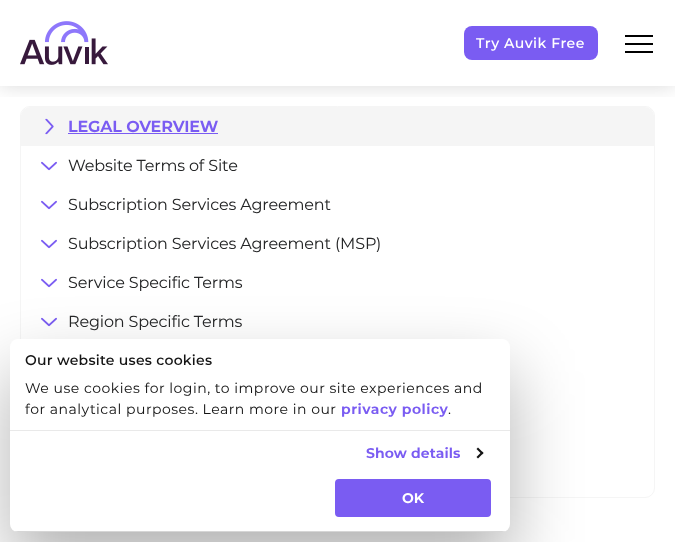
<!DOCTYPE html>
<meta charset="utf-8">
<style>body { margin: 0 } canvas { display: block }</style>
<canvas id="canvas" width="675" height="542"></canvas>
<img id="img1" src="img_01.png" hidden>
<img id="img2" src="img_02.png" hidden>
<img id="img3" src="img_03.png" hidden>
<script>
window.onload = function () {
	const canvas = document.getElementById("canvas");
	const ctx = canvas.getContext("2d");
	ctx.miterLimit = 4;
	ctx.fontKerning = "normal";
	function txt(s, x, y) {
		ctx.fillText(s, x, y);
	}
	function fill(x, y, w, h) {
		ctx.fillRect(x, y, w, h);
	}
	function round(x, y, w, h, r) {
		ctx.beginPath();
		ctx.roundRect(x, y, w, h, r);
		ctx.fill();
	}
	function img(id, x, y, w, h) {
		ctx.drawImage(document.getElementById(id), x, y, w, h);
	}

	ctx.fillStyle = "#FFFFFF";
	fill(0, 0, 675, 542);
	ctx.beginPath();
	ctx.roundRect(20.5, 106.5, 634, 391, 9.5);
	ctx.strokeStyle = "#F5F5F5";
	ctx.stroke();
	ctx.fillStyle = "#F5F5F5";
	ctx.beginPath();
	ctx.roundRect(21, 107, 633, 39, [9, 9, 0, 0]);
	ctx.fill();
	ctx.save();
	ctx.beginPath();
	ctx.rect(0, 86, 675, 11);
	ctx.clip();
	ctx.fillStyle = "rgba(0, 0, 0, 0.15)";
	ctx.filter = "blur(10px)";
	ctx.beginPath();
	ctx.rect(0, 0, 675, 86);
	ctx.fill();
	ctx.filter = "none";
	ctx.restore();
	img("img1", 20, 21, 88, 44);
	ctx.fillStyle = "#7A5CF2";
	round(464, 26, 134, 34, 8);
	ctx.fillStyle = "#000000";
	fill(625, 43, 28, 2);
	fill(625, 35, 28, 2);
	fill(625, 51, 28, 2);
	img("img2", 45, 118, 9, 17);
	ctx.fillStyle = "#7A5CF2";
	fill(68, 133, 150, 1);
	img("img3", 41, 161, 16, 10);
	img("img3", 41, 200, 16, 10);
	img("img3", 41, 239, 16, 10);
	img("img3", 41, 278, 16, 10);
	img("img3", 41, 317, 16, 10);
	ctx.fillStyle = "rgba(0, 0, 0, 0.3)";
	ctx.filter = "blur(34px)";
	ctx.beginPath();
	ctx.roundRect(10, 371, 500, 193, 8);
	ctx.fill();
	ctx.filter = "none";
	ctx.fillStyle = "#FFFFFF";
	round(10, 339, 500, 193, 8);
	ctx.fillStyle = "#E9E9E9";
	fill(10, 430, 500, 1);
	ctx.fillStyle = "#141414";
	ctx.beginPath();
	ctx.moveTo(478, 447.5);
	ctx.lineTo(483.5, 453);
	ctx.lineTo(482, 454.5);
	ctx.lineTo(476.5, 449);
	ctx.closePath();
	ctx.fill();
	ctx.beginPath();
	ctx.moveTo(482, 451.5);
	ctx.lineTo(483.5, 453);
	ctx.lineTo(478, 458.5);
	ctx.lineTo(476.5, 457);
	ctx.closePath();
	ctx.fill();
	ctx.save();
	ctx.beginPath();
	ctx.roundRect(10, 339, 500, 193, 8);
	ctx.clip();
	ctx.fillStyle = "#D6D6D6";
	fill(10, 531, 500, 1);
	ctx.restore();
	ctx.fillStyle = "#7A5CF2";
	ctx.beginPath();
	ctx.roundRect(336, 480, 154, 36, 3);
	ctx.fill();
	ctx.strokeStyle = "#7A5CF2";
	ctx.lineWidth = 2;
	ctx.stroke();
	ctx.letterSpacing = "0.5px";
	ctx.font = "600 14px Montserrat";
	ctx.fillStyle = "#FFFFFF";
	txt("Try Auvik Free", 476, 48);
	ctx.letterSpacing = "-0.15px";
	ctx.font = "bold 16px Montserrat";
	ctx.fillStyle = "#7A5CF2";
	txt("LEGAL OVERVIEW", 68, 132);
	ctx.font = "16px Montserrat";
	ctx.fillStyle = "#252627";
	txt("Website Terms of Site", 68, 171);
	txt("Subscription Services Agreement", 68, 210);
	txt("Subscription Services Agreement (MSP)", 68, 249);
	txt("Service Specific Terms", 68, 288);
	txt("Region Specific Terms", 68, 327);
	ctx.letterSpacing = "0.25px";
	ctx.font = "600 14px Montserrat";
	ctx.fillStyle = "#141414";
	txt("Our website uses cookies", 25, 365);
	ctx.letterSpacing = "0.5px";
	ctx.font = "14px Montserrat";
	txt("We use cookies for login, to improve our site experiences and", 25, 393);
	txt("for analytical purposes. Learn more in our", 25, 414);
	ctx.font = "bold 14px Montserrat";
	ctx.fillStyle = "#7A5CF2";
	txt("privacy policy", 341, 414);
	ctx.font = "14px Montserrat";
	ctx.fillStyle = "#141414";
	txt(".", 448, 414);
	ctx.letterSpacing = "0.1px";
	ctx.font = "bold 14px Montserrat";
	ctx.fillStyle = "#7A5CF2";
	txt("Show details", 366, 458);
	ctx.letterSpacing = "0px";
	ctx.fillStyle = "#FFFFFF";
	txt("OK", 402, 503);
};
</script>
